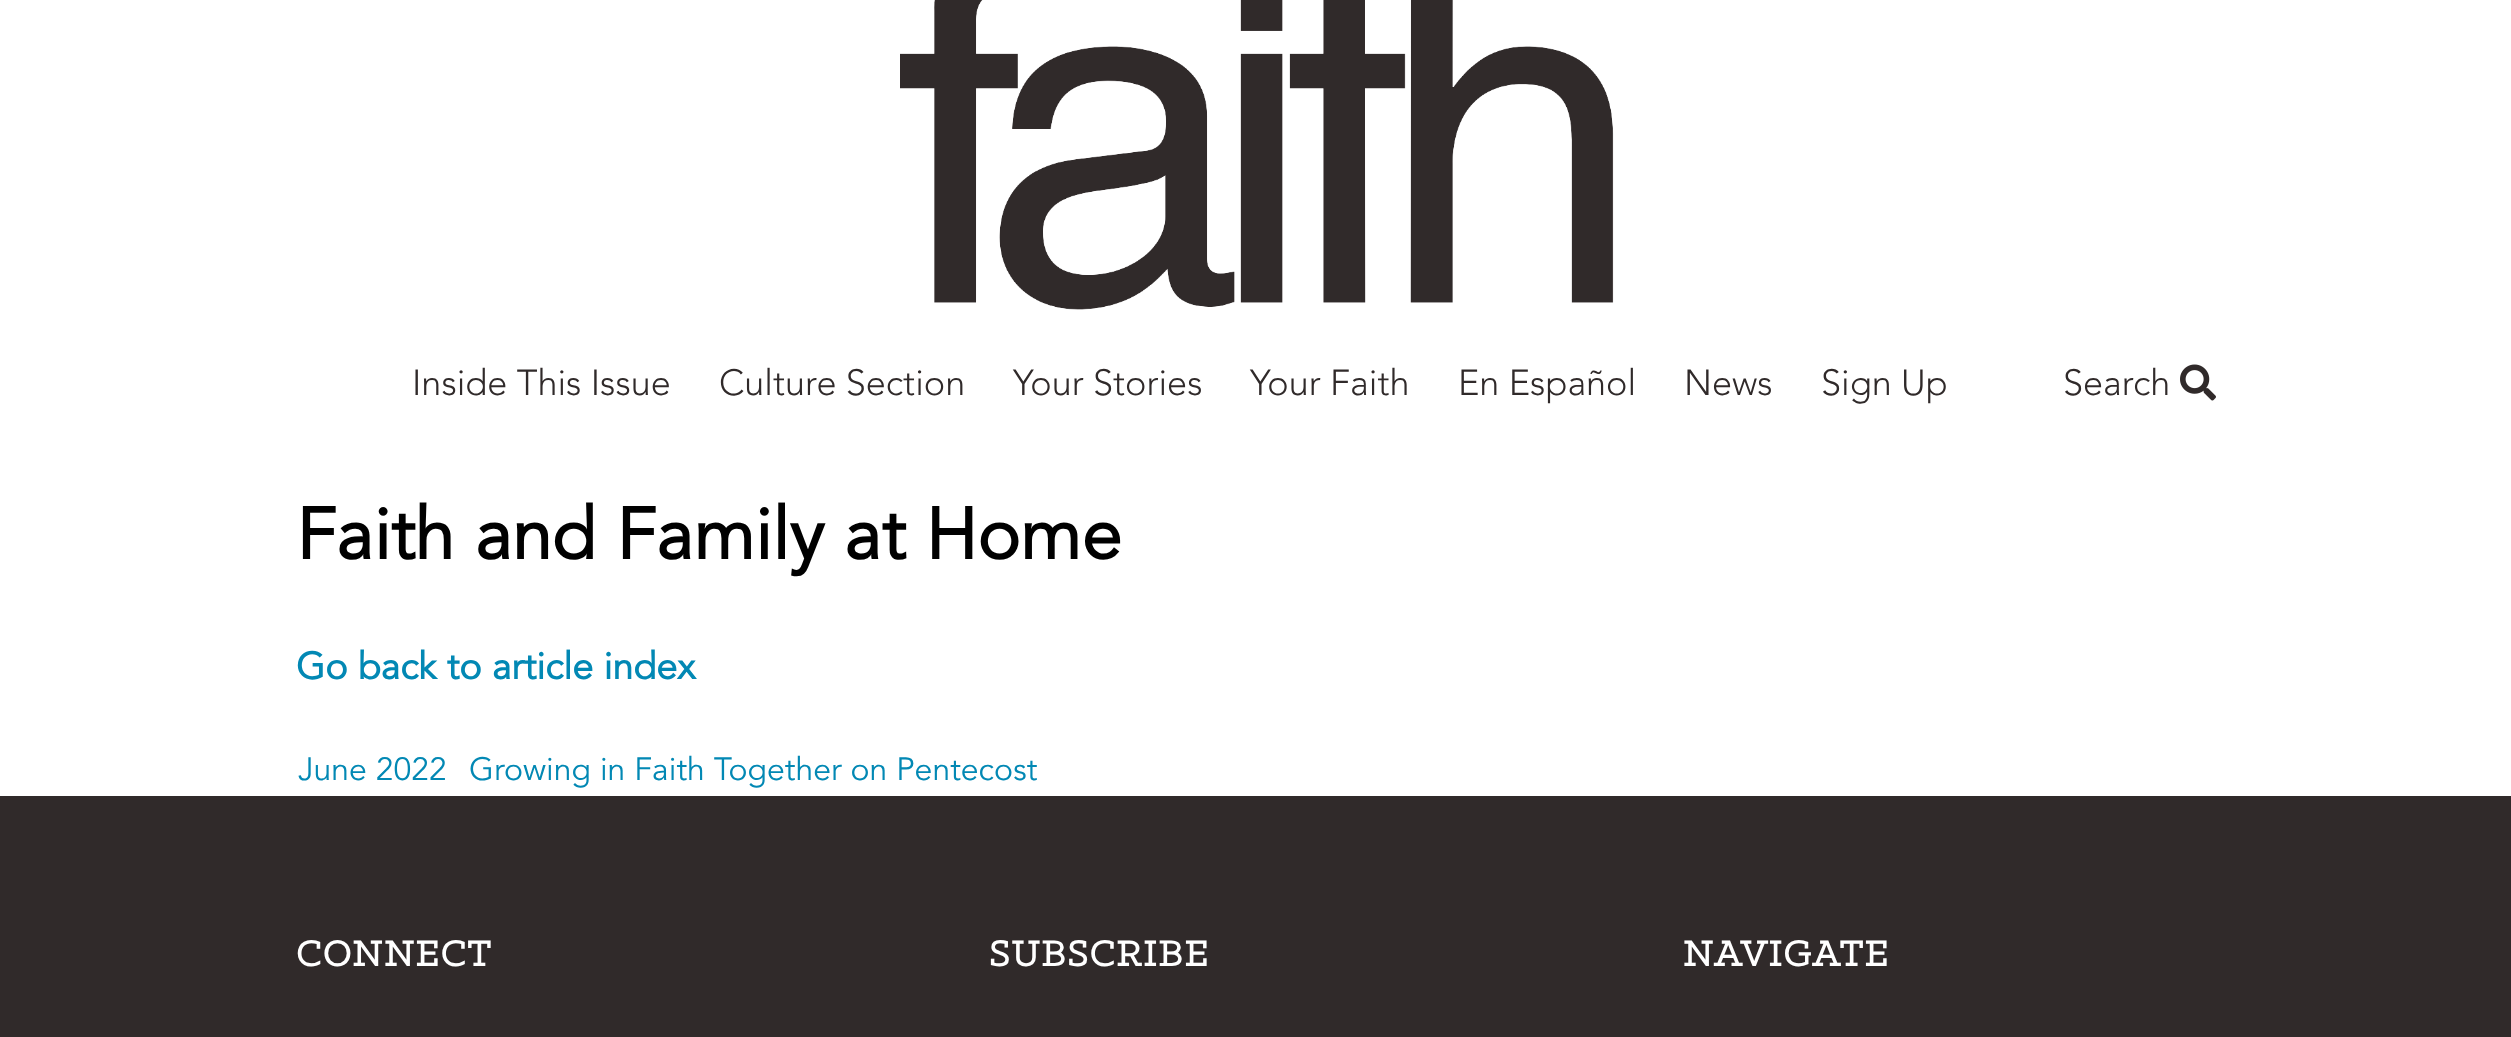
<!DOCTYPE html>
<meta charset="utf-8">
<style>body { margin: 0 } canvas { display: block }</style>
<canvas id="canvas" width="2511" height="1037"></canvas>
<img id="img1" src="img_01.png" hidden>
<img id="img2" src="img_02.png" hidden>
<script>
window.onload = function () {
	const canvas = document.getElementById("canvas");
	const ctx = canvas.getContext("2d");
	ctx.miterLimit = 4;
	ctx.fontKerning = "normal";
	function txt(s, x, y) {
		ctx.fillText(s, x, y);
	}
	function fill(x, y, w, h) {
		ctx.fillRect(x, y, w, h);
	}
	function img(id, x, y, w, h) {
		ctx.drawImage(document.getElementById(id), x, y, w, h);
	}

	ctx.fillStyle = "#FFFFFF";
	fill(0, 0, 2511, 1037);
	img("img1", 900, 0, 714, 310);
	img("img2", 2180, 364, 36, 37);
	ctx.fillStyle = "#302A2A";
	fill(0, 796, 2511, 241);
	ctx.font = "300 36px Avenir";
	txt("Inside This Issue", 412, 395);
	txt("Culture Section", 719, 395);
	txt("Your Stories", 1013, 395);
	txt("Your Faith", 1250, 395);
	txt("En Español", 1458, 395);
	txt("News", 1684, 395);
	txt("Sign Up", 1821, 395);
	txt("Search", 2063, 395);
	ctx.font = "bold 72px Avenir";
	ctx.fillStyle = "#000000";
	txt("Faith and Family at Home", 296, 559);
	ctx.font = "bold 37.5px Avenir";
	ctx.fillStyle = "#0288B4";
	txt("Go back to article index", 296, 679);
	ctx.font = "32px Avenir";
	txt("June 2022", 298, 780);
	txt("Growing in Faith Together on Pentecost", 469, 780);
	ctx.letterSpacing = "2px";
	ctx.font = "bold 40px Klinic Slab";
	ctx.fillStyle = "#FFFFFF";
	txt("CONNECT", 296, 966);
	txt("SUBSCRIBE", 989, 966);
	txt("NAVIGATE", 1683, 966);
};
</script>
